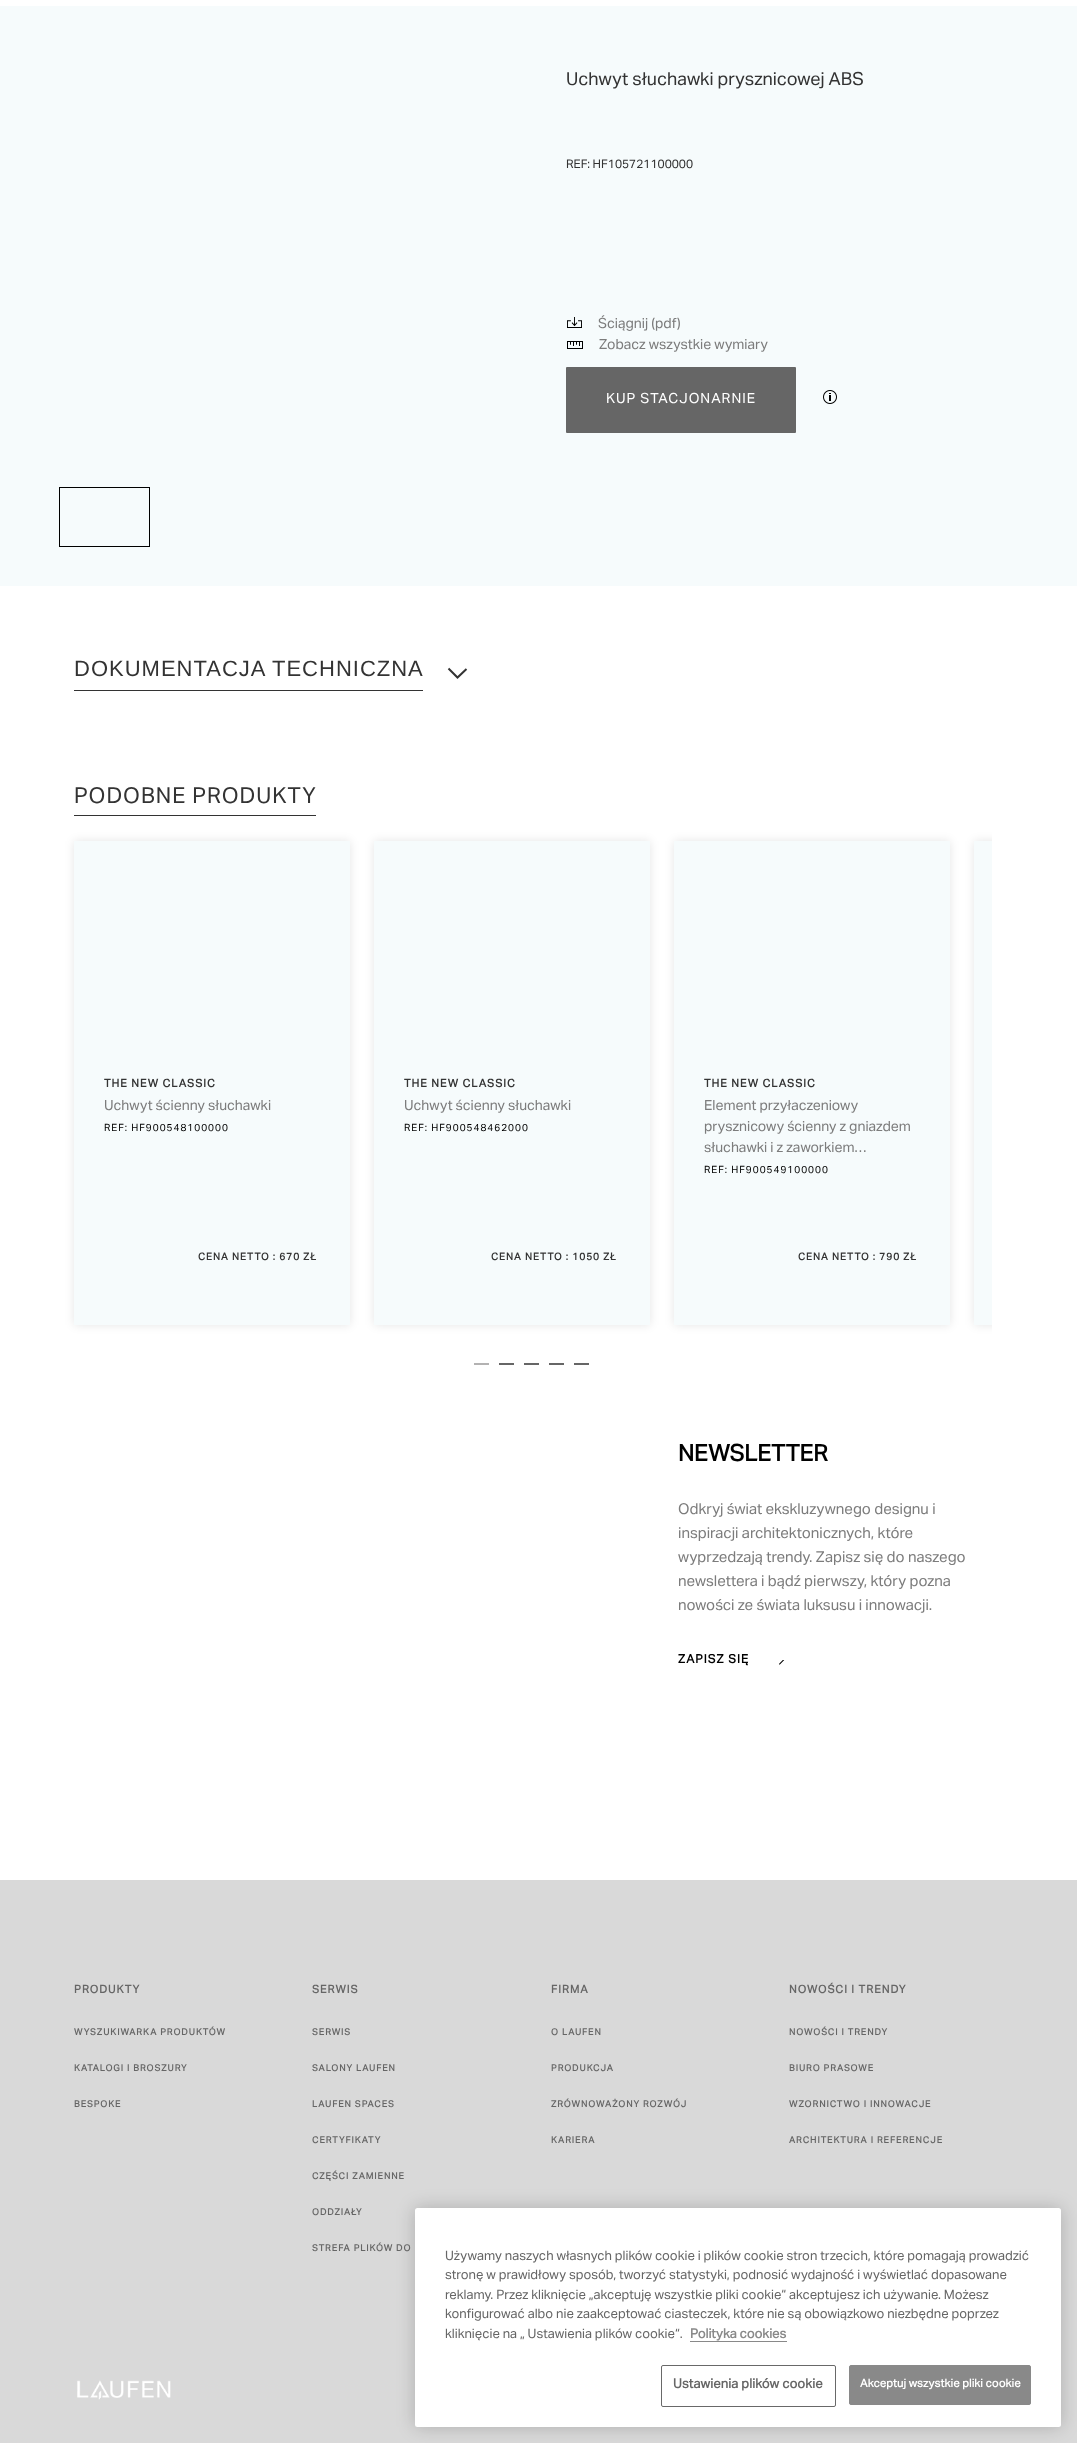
<!DOCTYPE html>
<meta charset="utf-8">
<style>body { margin: 0 } canvas { display: block }</style>
<canvas id="canvas" width="1077" height="2443"></canvas>
<img id="img1" src="img_01.png" hidden>
<img id="img2" src="img_02.png" hidden>
<img id="img3" src="img_03.png" hidden>
<img id="img4" src="img_04.png" hidden>
<img id="img5" src="img_05.png" hidden>
<script>
window.onload = function () {
	const canvas = document.getElementById("canvas");
	const ctx = canvas.getContext("2d");
	ctx.miterLimit = 4;
	ctx.fontKerning = "normal";
	function txt(s, x, y) {
		ctx.fillText(s, x, y);
	}
	function fill(x, y, w, h) {
		ctx.fillRect(x, y, w, h);
	}
	function round(x, y, w, h, r) {
		ctx.beginPath();
		ctx.roundRect(x, y, w, h, r);
		ctx.fill();
	}
	function img(id, x, y, w, h) {
		ctx.drawImage(document.getElementById(id), x, y, w, h);
	}

	ctx.fillStyle = "#FFFFFF";
	fill(0, 0, 1077, 2443);
	ctx.fillStyle = "#F6FBFC";
	fill(0, 6, 1077, 580);
	img("img1", 567, 317, 15, 11);
	img("img2", 567, 341, 16, 8);
	ctx.fillStyle = "#666666";
	round(566, 367, 230, 66, 1);
	img("img3", 823, 390, 14, 14);
	ctx.strokeStyle = "#000000";
	ctx.strokeRect(59.5, 487.5, 90, 59);
	ctx.fillStyle = "#333333";
	fill(74, 690, 349, 1);
	ctx.beginPath();
	ctx.moveTo(448.5, 668.5);
	ctx.lineTo(457.5, 677.5);
	ctx.lineTo(466.5, 669);
	ctx.strokeStyle = "#333333";
	ctx.lineWidth = 2;
	ctx.stroke();
	fill(74, 815, 242, 1);
	ctx.fillStyle = "rgba(0, 0, 0, 0.1)";
	ctx.filter = "blur(5px)";
	ctx.beginPath();
	ctx.rect(74, 841, 276, 484);
	ctx.fill();
	ctx.filter = "none";
	ctx.fillStyle = "#F6FBFC";
	fill(74, 841, 276, 484);
	ctx.fillStyle = "rgba(0, 0, 0, 0.1)";
	ctx.filter = "blur(5px)";
	ctx.beginPath();
	ctx.rect(374, 841, 276, 484);
	ctx.fill();
	ctx.filter = "none";
	ctx.fillStyle = "#F6FBFC";
	fill(374, 841, 276, 484);
	ctx.fillStyle = "rgba(0, 0, 0, 0.1)";
	ctx.filter = "blur(5px)";
	ctx.beginPath();
	ctx.rect(674, 841, 276, 484);
	ctx.fill();
	ctx.filter = "none";
	ctx.fillStyle = "#F6FBFC";
	fill(674, 841, 276, 484);
	ctx.save();
	ctx.beginPath();
	ctx.rect(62, 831, 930, 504);
	ctx.clip();
	ctx.fillStyle = "rgba(0, 0, 0, 0.1)";
	ctx.filter = "blur(5px)";
	ctx.beginPath();
	ctx.rect(974, 841, 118, 484);
	ctx.fill();
	ctx.filter = "none";
	ctx.restore();
	fill(974, 841, 18, 484);
	ctx.fillStyle = "#B3B2B2";
	fill(474, 1363, 15, 2);
	ctx.fillStyle = "#666666";
	fill(499, 1363, 15, 2);
	fill(524, 1363, 15, 2);
	fill(549, 1363, 15, 2);
	fill(574, 1363, 15, 2);
	img("img4", 779, 1660, 6, 5);
	ctx.fillStyle = "#D9D9D9";
	fill(0, 1880, 1077, 563);
	img("img5", 77, 2380, 94, 20);
	ctx.fillStyle = "rgba(0, 0, 0, 0.2)";
	ctx.filter = "blur(9px)";
	ctx.beginPath();
	ctx.roundRect(415, 2208, 646, 219, 2.5);
	ctx.fill();
	ctx.filter = "none";
	ctx.fillStyle = "#FFFFFF";
	round(415, 2208, 646, 219, 2.5);
	ctx.fillStyle = "#898989";
	fill(690, 2341, 97, 1);
	ctx.beginPath();
	ctx.roundRect(661.5, 2365.5, 174, 41, 1.5);
	ctx.strokeStyle = "#696969";
	ctx.lineWidth = 1;
	ctx.stroke();
	ctx.beginPath();
	ctx.roundRect(849.5, 2365.5, 181, 39, 1.5);
	ctx.fill();
	ctx.strokeStyle = "#898989";
	ctx.stroke();
	ctx.font = "18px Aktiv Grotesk";
	ctx.fillStyle = "#333333";
	txt("Uchwyt słuchawki prysznicowej ABS", 566, 85);
	ctx.font = "12px Aktiv Grotesk";
	txt("REF: HF105721100000", 566, 168);
	ctx.font = "14px Aktiv Grotesk";
	ctx.fillStyle = "#7C7C7C";
	txt("Ściągnij (pdf)", 598, 328);
	txt("Zobacz wszystkie wymiary", 599, 349);
	ctx.letterSpacing = "1px";
	ctx.fillStyle = "#FFFFFF";
	txt("KUP STACJONARNIE", 606, 403);
	ctx.font = "22px Liberation Sans";
	ctx.fillStyle = "#333333";
	txt("DOKUMENTACJA TECHNICZNA", 74, 676);
	ctx.font = "22px Aktiv Grotesk";
	txt("PODOBNE PRODUKTY", 74, 803);
	ctx.font = "bold 11px Aktiv Grotesk";
	txt("THE NEW CLASSIC", 104, 1087);
	ctx.letterSpacing = "0px";
	ctx.font = "14px Aktiv Grotesk";
	ctx.fillStyle = "#7C7C7C";
	txt("Uchwyt ścienny słuchawki", 104, 1110);
	ctx.letterSpacing = "1px";
	ctx.font = "10px Aktiv Grotesk";
	ctx.fillStyle = "#000000";
	txt("REF: HF900548100000", 104, 1131);
	ctx.font = "bold 10px Aktiv Grotesk";
	ctx.fillStyle = "#333333";
	txt("CENA NETTO : 670 ZŁ", 198, 1260);
	ctx.font = "bold 11px Aktiv Grotesk";
	txt("THE NEW CLASSIC", 404, 1087);
	ctx.letterSpacing = "0px";
	ctx.font = "14px Aktiv Grotesk";
	ctx.fillStyle = "#7C7C7C";
	txt("Uchwyt ścienny słuchawki", 404, 1110);
	ctx.letterSpacing = "1px";
	ctx.font = "10px Aktiv Grotesk";
	ctx.fillStyle = "#000000";
	txt("REF: HF900548462000", 404, 1131);
	ctx.font = "bold 10px Aktiv Grotesk";
	ctx.fillStyle = "#333333";
	txt("CENA NETTO : 1050 ZŁ", 491, 1260);
	ctx.font = "bold 11px Aktiv Grotesk";
	txt("THE NEW CLASSIC", 704, 1087);
	ctx.letterSpacing = "0px";
	ctx.font = "14px Aktiv Grotesk";
	ctx.fillStyle = "#7C7C7C";
	txt("Element przyłaczeniowy", 704, 1110);
	txt("prysznicowy ścienny z gniazdem", 704, 1131);
	txt("słuchawki i z zaworkiem…", 704, 1152);
	ctx.letterSpacing = "1px";
	ctx.font = "10px Aktiv Grotesk";
	ctx.fillStyle = "#000000";
	txt("REF: HF900549100000", 704, 1173);
	ctx.font = "bold 10px Aktiv Grotesk";
	ctx.fillStyle = "#333333";
	txt("CENA NETTO : 790 ZŁ", 798, 1260);
	ctx.letterSpacing = "0px";
	ctx.font = "bold 23px Aktiv Grotesk";
	ctx.fillStyle = "#000000";
	txt("NEWSLETTER", 678, 1461);
	ctx.font = "15px Aktiv Grotesk";
	ctx.fillStyle = "#7C7C7C";
	txt("Odkryj świat ekskluzywnego designu i", 678, 1514);
	txt("inspiracji architektonicznych, które", 678, 1538);
	txt("wyprzedzają trendy. Zapisz się do naszego", 678, 1562);
	txt("newslettera i bądź pierwszy, który pozna", 678, 1586);
	txt("nowości ze świata luksusu i innowacji.", 678, 1610);
	ctx.letterSpacing = "1px";
	ctx.font = "bold 12px Aktiv Grotesk";
	ctx.fillStyle = "#000000";
	txt("ZAPISZ SIĘ", 678, 1663);
	ctx.font = "bold 11px Aktiv Grotesk";
	ctx.fillStyle = "#666666";
	txt("PRODUKTY", 74, 1993);
	ctx.font = "bold 9px Aktiv Grotesk";
	txt("WYSZUKIWARKA PRODUKTÓW", 74, 2035);
	txt("KATALOGI I BROSZURY", 74, 2071);
	txt("BESPOKE", 74, 2107);
	ctx.font = "bold 11px Aktiv Grotesk";
	txt("SERWIS", 312, 1993);
	ctx.font = "bold 9px Aktiv Grotesk";
	txt("SERWIS", 312, 2035);
	txt("SALONY LAUFEN", 312, 2071);
	txt("LAUFEN SPACES", 312, 2107);
	txt("CERTYFIKATY", 312, 2143);
	txt("CZĘŚCI ZAMIENNE", 312, 2179);
	txt("ODDZIAŁY", 312, 2215);
	txt("STREFA PLIKÓW DO", 312, 2251);
	ctx.font = "bold 11px Aktiv Grotesk";
	txt("FIRMA", 551, 1993);
	ctx.font = "bold 9px Aktiv Grotesk";
	txt("O LAUFEN", 551, 2035);
	txt("PRODUKCJA", 551, 2071);
	txt("ZRÓWNOWAŻONY ROZWÓJ", 551, 2107);
	txt("KARIERA", 551, 2143);
	ctx.font = "bold 11px Aktiv Grotesk";
	txt("NOWOŚCI I TRENDY", 789, 1993);
	ctx.font = "bold 9px Aktiv Grotesk";
	txt("NOWOŚCI I TRENDY", 789, 2035);
	txt("BIURO PRASOWE", 789, 2071);
	txt("WZORNICTWO I INNOWACJE", 789, 2107);
	txt("ARCHITEKTURA I REFERENCJE", 789, 2143);
	ctx.letterSpacing = "0px";
	ctx.font = "13px Aktiv Grotesk";
	txt("Używamy naszych własnych plików cookie i plików cookie stron trzecich, które pomagają prowadzić", 445, 2260);
	txt("stronę w prawidłowy sposób, tworzyć statystyki, podnosić wydajność i wyświetlać dopasowane", 445, 2279);
	txt("reklamy. Przez kliknięcie „akceptuję wszystkie pliki cookie“ akceptujesz ich używanie. Możesz", 445, 2299);
	txt("konfigurować albo nie zaakceptować ciasteczek, które nie są obowiązkowo niezbędne poprzez", 445, 2318);
	txt("kliknięcie na „ Ustawienia plików cookie“.", 445, 2338);
	ctx.font = "bold 13px Aktiv Grotesk";
	ctx.fillStyle = "#898989";
	txt("Polityka cookies", 690, 2338);
	ctx.letterSpacing = "0.1px";
	ctx.fillStyle = "#666666";
	txt("Ustawienia plików cookie", 673, 2388);
	ctx.font = "bold 11.25px Aktiv Grotesk";
	ctx.fillStyle = "#FFFFFF";
	txt("Akceptuj wszystkie pliki cookie", 860, 2387);
};
</script>
